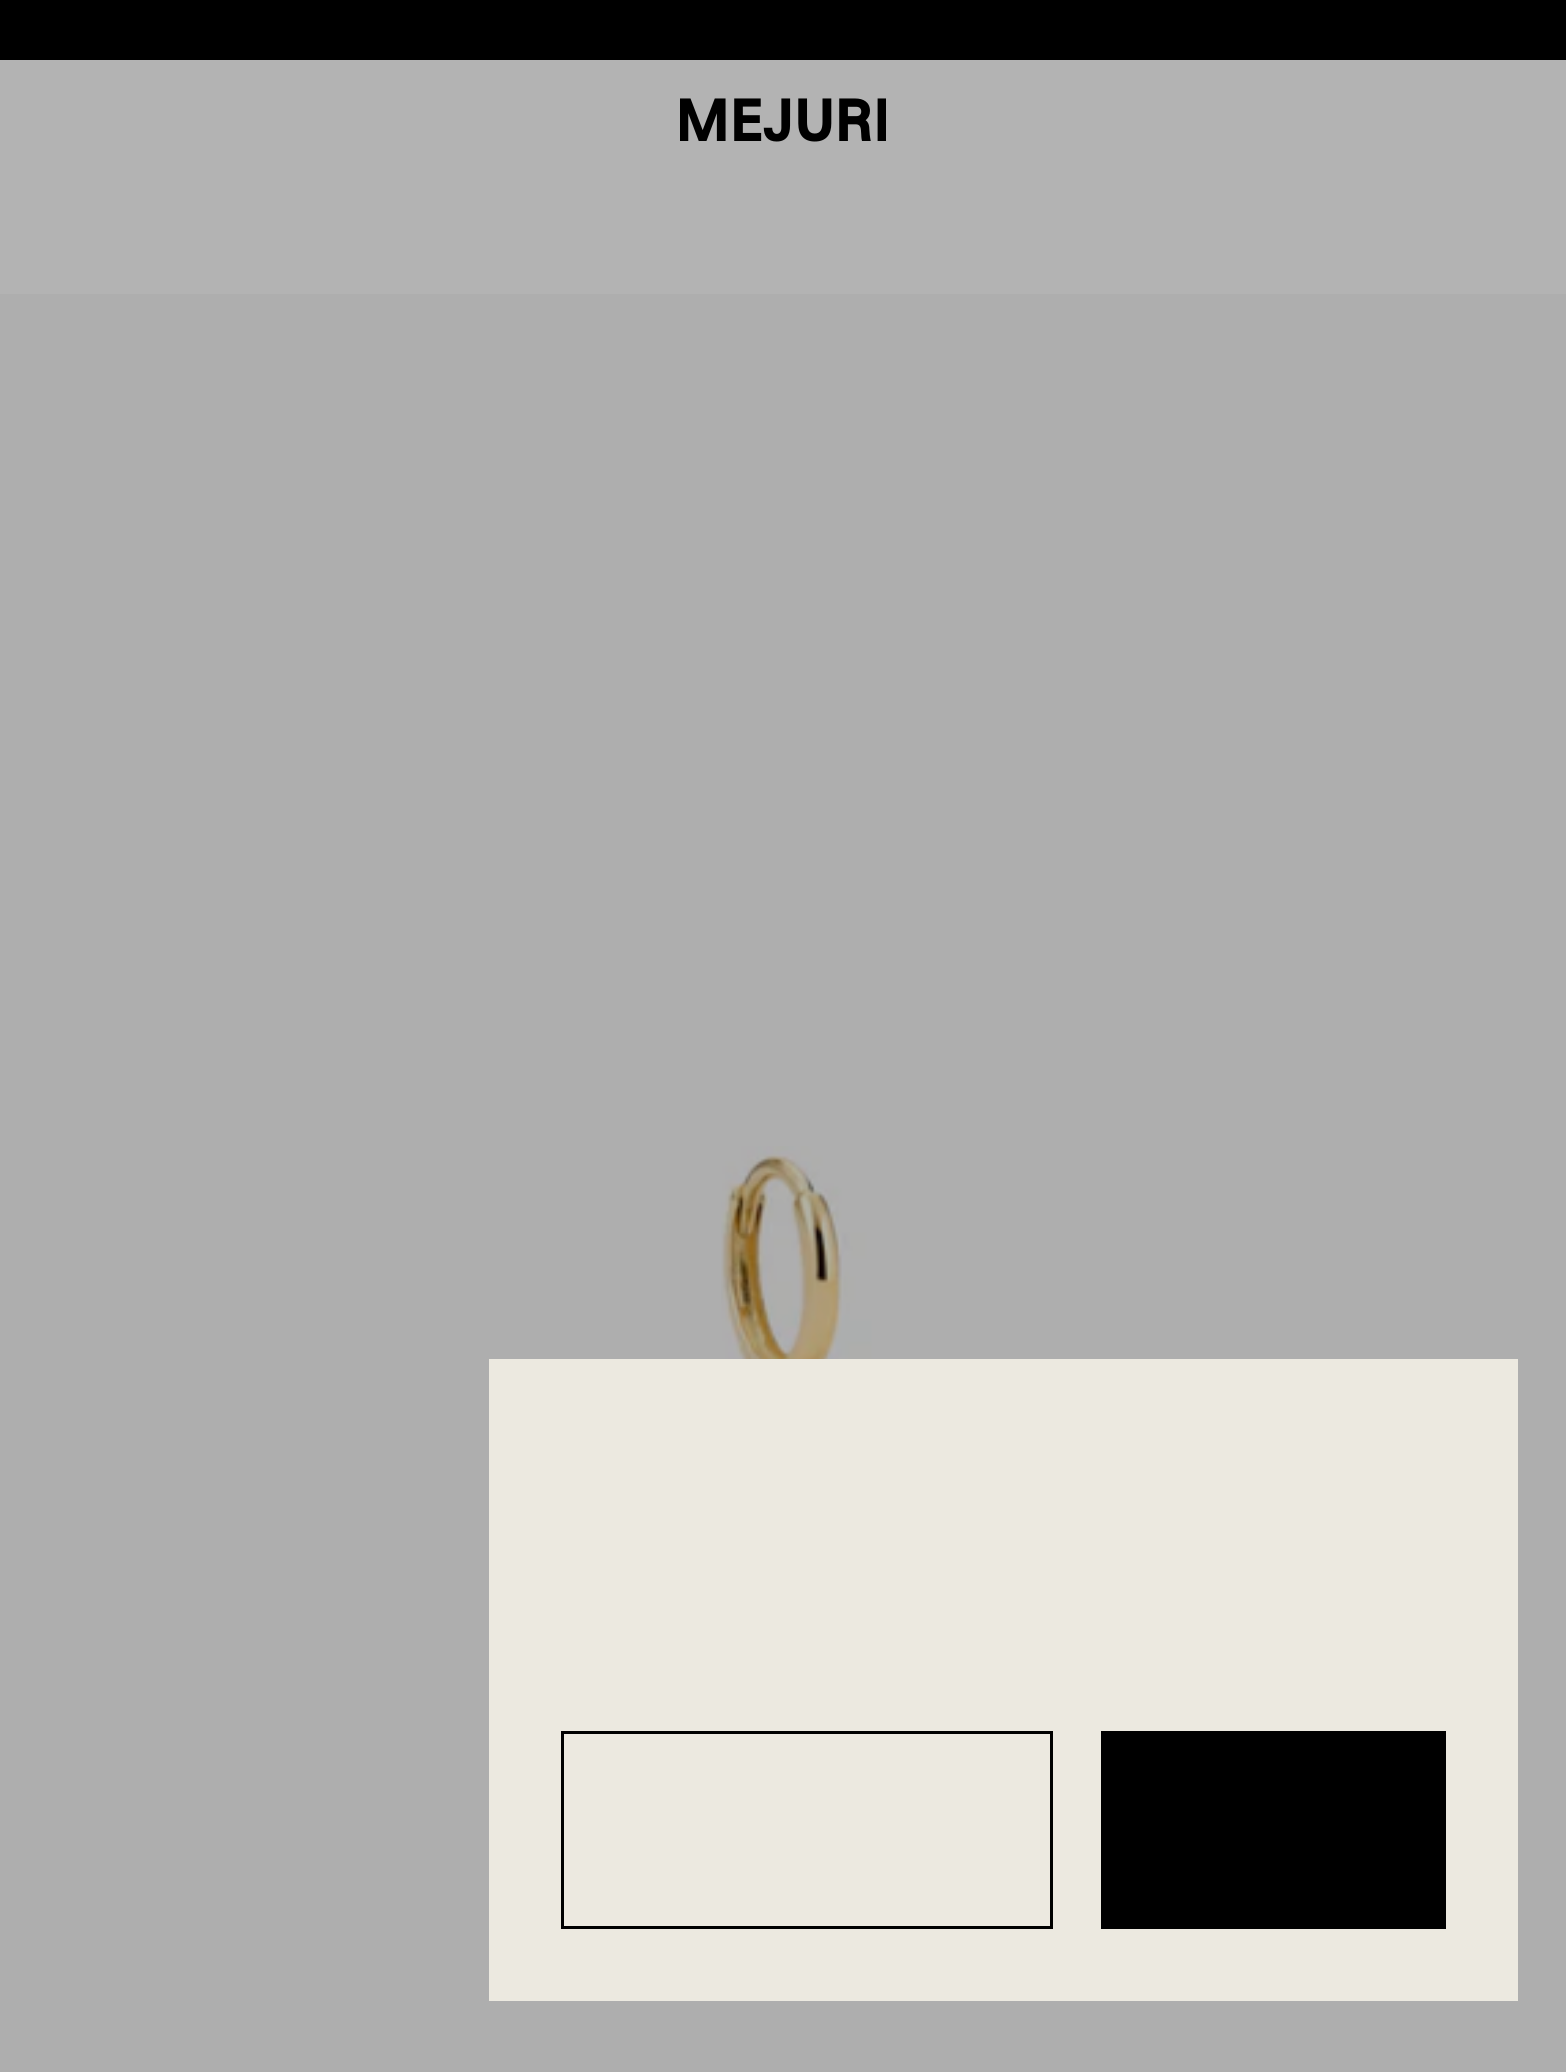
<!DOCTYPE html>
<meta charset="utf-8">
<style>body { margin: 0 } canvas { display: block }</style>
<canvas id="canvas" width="1566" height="2072"></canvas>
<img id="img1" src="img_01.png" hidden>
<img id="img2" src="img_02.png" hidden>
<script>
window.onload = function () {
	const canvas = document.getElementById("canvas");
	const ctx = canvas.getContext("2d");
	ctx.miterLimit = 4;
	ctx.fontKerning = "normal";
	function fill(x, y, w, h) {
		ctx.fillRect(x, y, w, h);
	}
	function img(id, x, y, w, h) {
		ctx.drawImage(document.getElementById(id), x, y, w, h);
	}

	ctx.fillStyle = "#B3B3B3";
	fill(0, 0, 1566, 2072);
	ctx.fillStyle = "#000000";
	fill(0, 0, 1566, 60);
	img("img1", 680, 98, 206, 44);
	ctx.fillStyle = "#AEAEAE";
	fill(0, 294, 1566, 1778);
	img("img2", 721, 1146, 166, 213);
	ctx.fillStyle = "#ECE9E0";
	fill(489, 1359, 1029, 642);
	ctx.strokeStyle = "#000000";
	ctx.lineWidth = 3;
	ctx.strokeRect(562.5, 1732.5, 489, 195);
	ctx.fillStyle = "#000000";
	fill(1101, 1731, 345, 198);
};
</script>
